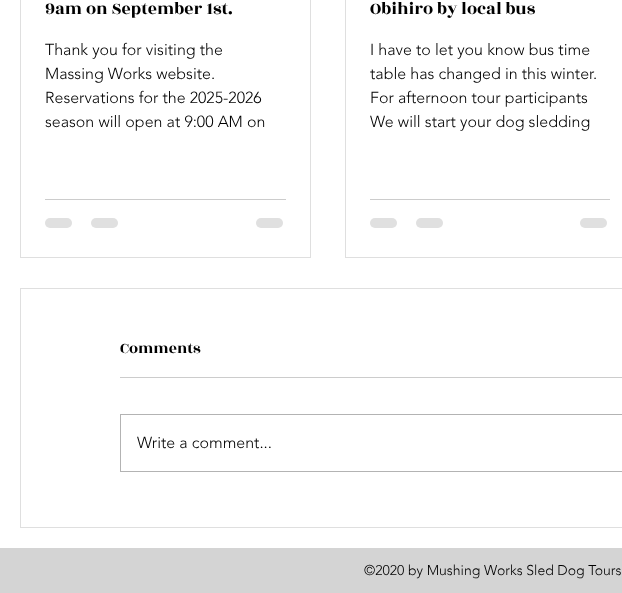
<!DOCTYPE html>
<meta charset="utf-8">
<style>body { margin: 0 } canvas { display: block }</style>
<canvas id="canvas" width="622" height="593"></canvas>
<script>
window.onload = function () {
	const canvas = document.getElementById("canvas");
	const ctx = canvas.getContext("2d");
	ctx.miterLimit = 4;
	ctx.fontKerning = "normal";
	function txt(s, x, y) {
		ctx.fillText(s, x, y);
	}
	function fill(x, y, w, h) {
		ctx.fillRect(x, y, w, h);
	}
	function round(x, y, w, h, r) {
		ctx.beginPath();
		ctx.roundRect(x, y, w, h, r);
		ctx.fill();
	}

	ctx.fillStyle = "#FFFFFF";
	fill(0, 0, 622, 593);
	ctx.strokeStyle = "#DFDFDF";
	ctx.strokeRect(20.5, -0.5, 290, 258);
	ctx.fillStyle = "#CCCCCC";
	fill(45, 199, 241, 1);
	ctx.fillStyle = "#E0E0E0";
	round(45, 218, 27, 10, 5);
	round(91, 218, 27, 10, 5);
	round(256, 218, 27, 10, 5);
	ctx.strokeRect(345.5, -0.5, 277, 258);
	ctx.fillStyle = "#CCCCCC";
	fill(370, 199, 240, 1);
	ctx.fillStyle = "#E0E0E0";
	round(370, 218, 27, 10, 5);
	round(416, 218, 27, 10, 5);
	round(580, 218, 27, 10, 5);
	ctx.strokeRect(20.5, 288.5, 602, 239);
	ctx.fillStyle = "#CCCCCC";
	fill(120, 377, 502, 1);
	ctx.strokeStyle = "#B3B3B3";
	ctx.strokeRect(120.5, 414.5, 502, 57);
	ctx.fillStyle = "#D4D4D4";
	fill(0, 548, 622, 45);
	ctx.font = "18px Rozha One";
	ctx.fillStyle = "#000000";
	txt("9am on September 1st.", 45, 14);
	ctx.font = "300 16px 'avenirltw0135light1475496'";
	txt("Thank you for visiting the", 45, 55);
	txt("Massing Works website.", 45, 79);
	txt("Reservations for the 2025-2026", 45, 103);
	txt("season will open at 9:00 AM on", 45, 127);
	ctx.font = "18px Rozha One";
	txt("Obihiro by local bus", 370, 14);
	ctx.font = "300 16px 'avenirltw0135light1475496'";
	txt("I have to let you know bus time", 370, 55);
	txt("table has changed in this winter.", 370, 79);
	txt("For afternoon tour participants", 370, 103);
	txt("We will start your dog sledding", 370, 127);
	ctx.font = "16px Rozha One";
	txt("Comments", 120, 353);
	ctx.font = "300 16px 'avenirltw0135light1475496'";
	txt("Write a comment...", 137, 448);
	ctx.font = "300 14px 'avenirltw0135light1475496'";
	txt("©2020 by Mushing Works Sled Dog Tours", 364, 575);
};
</script>
